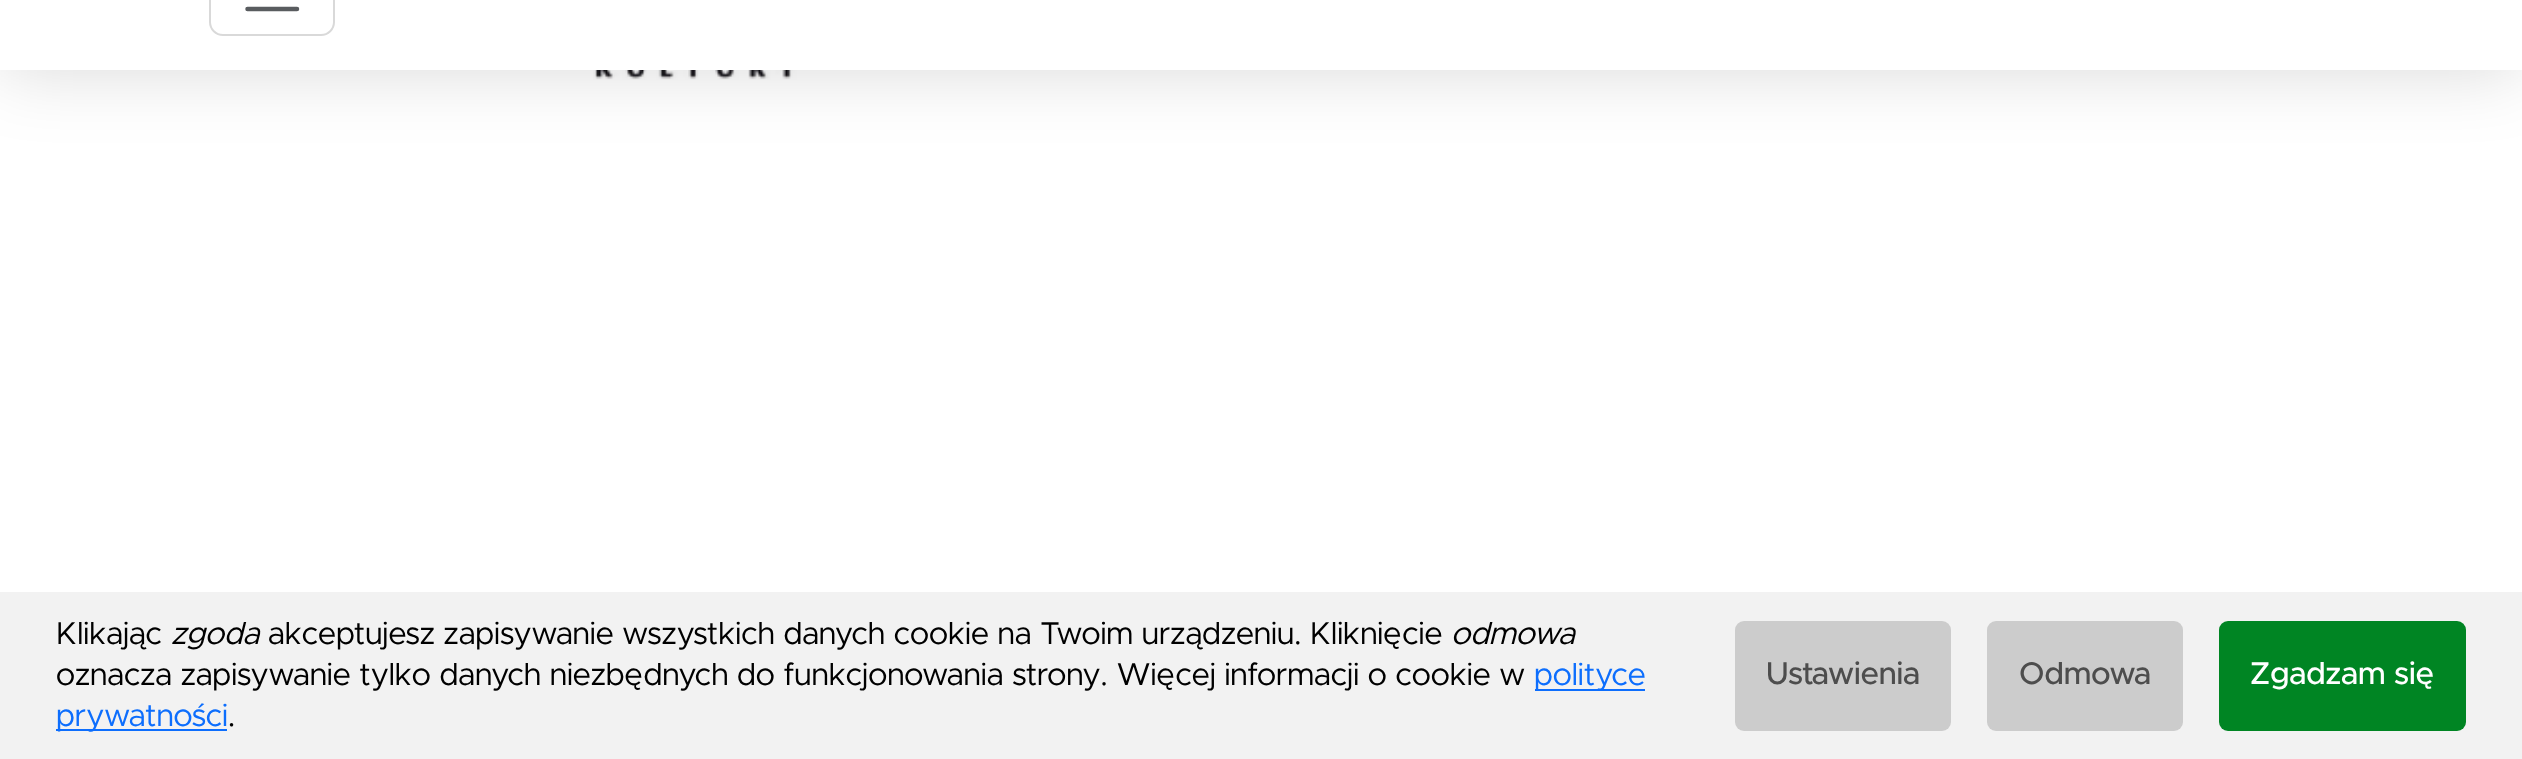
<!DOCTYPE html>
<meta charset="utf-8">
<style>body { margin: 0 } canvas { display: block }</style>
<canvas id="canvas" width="2522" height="759"></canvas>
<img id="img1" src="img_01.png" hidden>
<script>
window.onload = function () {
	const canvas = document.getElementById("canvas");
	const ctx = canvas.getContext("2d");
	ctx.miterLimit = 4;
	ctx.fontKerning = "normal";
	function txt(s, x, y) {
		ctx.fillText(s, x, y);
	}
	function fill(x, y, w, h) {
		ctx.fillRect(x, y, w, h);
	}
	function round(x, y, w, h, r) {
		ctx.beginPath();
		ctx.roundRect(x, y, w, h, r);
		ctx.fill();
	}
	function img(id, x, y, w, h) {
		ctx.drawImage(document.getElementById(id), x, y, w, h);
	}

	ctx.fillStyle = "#FFFFFF";
	fill(0, 0, 2522, 759);
	img("img1", 593, 70, 204, 10);
	ctx.fillStyle = "rgba(0, 0, 0, 0.15)";
	ctx.filter = "blur(36px)";
	ctx.beginPath();
	ctx.rect(0, -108, 2522, 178);
	ctx.fill();
	ctx.filter = "none";
	ctx.fillStyle = "#FFFFFF";
	fill(0, 0, 2522, 70);
	ctx.beginPath();
	ctx.roundRect(210, -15, 124, 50, 13);
	ctx.strokeStyle = "#D9D9D9";
	ctx.lineWidth = 2;
	ctx.stroke();
	ctx.beginPath();
	ctx.moveTo(247.5, -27);
	ctx.lineTo(297, -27);
	ctx.moveTo(247.5, -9);
	ctx.lineTo(297, -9);
	ctx.moveTo(247.5, 9);
	ctx.lineTo(297, 9);
	ctx.strokeStyle = "#595C5F";
	ctx.lineWidth = 4.5;
	ctx.lineCap = "round";
	ctx.stroke();
	ctx.fillStyle = "#F2F2F2";
	fill(0, 592, 2522, 167);
	ctx.fillStyle = "#0D6EFD";
	fill(1535, 689, 110, 2);
	fill(56, 729, 171, 2);
	ctx.fillStyle = "#CCCCCC";
	round(1735, 621, 216, 110, 9);
	round(1987, 621, 196, 110, 9);
	ctx.fillStyle = "#008523";
	round(2219, 621, 247, 110, 9);
	ctx.font = "31.5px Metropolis";
	ctx.fillStyle = "#000000";
	txt("Klikając", 56, 644);
	ctx.font = "italic 31.5px Metropolis";
	txt("zgoda", 171, 644);
	ctx.font = "31.5px Metropolis";
	txt("akceptujesz zapisywanie wszystkich danych cookie na Twoim urządzeniu. Kliknięcie", 268, 644);
	ctx.font = "italic 31.5px Metropolis";
	txt("odmowa", 1451, 644);
	ctx.font = "31.5px Metropolis";
	txt("oznacza zapisywanie tylko danych niezbędnych do funkcjonowania strony. Więcej informacji o cookie w", 56, 685);
	ctx.fillStyle = "#0D6EFD";
	txt("polityce", 1534, 685);
	txt("prywatności", 56, 726);
	ctx.fillStyle = "#000000";
	txt(".", 228, 726);
	ctx.font = "500 31.5px Metropolis";
	ctx.fillStyle = "#4D4D4D";
	txt("Ustawienia", 1766, 684);
	txt("Odmowa", 2019, 684);
	ctx.fillStyle = "#FFFFFF";
	txt("Zgadzam się", 2250, 684);
};
</script>
